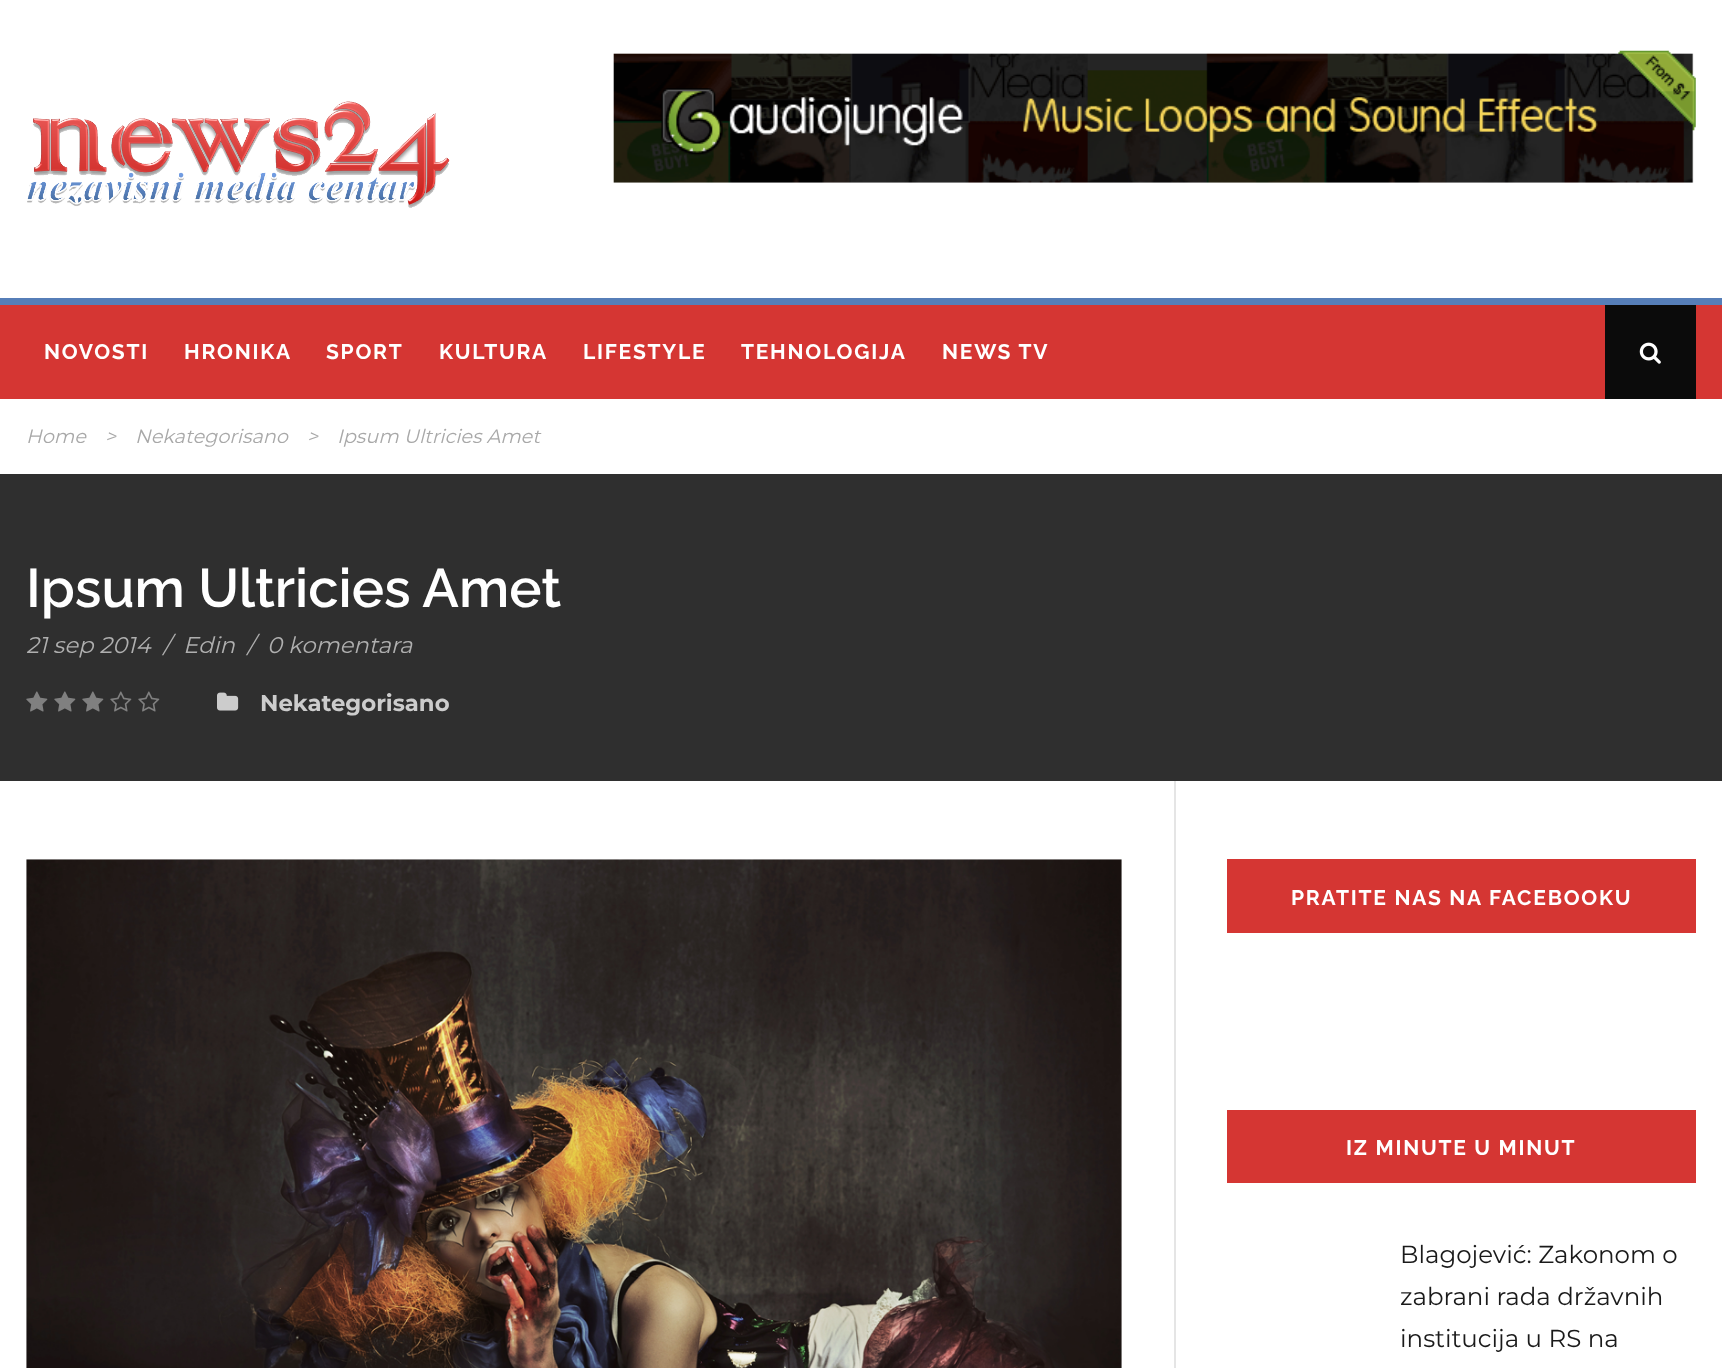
<!DOCTYPE html>
<meta charset="utf-8">
<style>body { margin: 0 } canvas { display: block }</style>
<canvas id="canvas" width="1722" height="1368"></canvas>
<img id="img1" src="img_01.png" hidden>
<img id="img2" src="img_02.png" hidden>
<img id="img3" src="img_03.png" hidden>
<img id="img4" src="img_04.png" hidden>
<img id="img5" src="img_05.png" hidden>
<img id="img6" src="img_06.png" hidden>
<img id="img7" src="img_07.png" hidden>
<script>
window.onload = function () {
	const canvas = document.getElementById("canvas");
	const ctx = canvas.getContext("2d");
	ctx.miterLimit = 4;
	ctx.fontKerning = "normal";
	function txt(s, x, y) {
		ctx.fillText(s, x, y);
	}
	function fill(x, y, w, h) {
		ctx.fillRect(x, y, w, h);
	}
	function img(id, x, y, w, h) {
		ctx.drawImage(document.getElementById(id), x, y, w, h);
	}

	ctx.fillStyle = "#FFFFFF";
	fill(0, 0, 1722, 1368);
	img("img1", 27, 101, 423, 107);
	img("img2", 613, 50, 1083, 133);
	ctx.fillStyle = "#D53633";
	fill(0, 305, 1722, 94);
	ctx.fillStyle = "#567EB8";
	fill(0, 298, 1722, 7);
	ctx.fillStyle = "#0B0B0B";
	fill(1605, 305, 91, 94);
	img("img3", 1639, 342, 22, 22);
	ctx.fillStyle = "#2F2F2F";
	fill(0, 474, 1722, 307);
	img("img4", 26, 691, 22, 21);
	img("img4", 54, 691, 22, 21);
	img("img4", 82, 691, 22, 21);
	img("img5", 110, 691, 22, 21);
	img("img5", 138, 691, 22, 21);
	img("img6", 217, 692, 22, 19);
	img("img7", 26, 859, 1096, 509);
	ctx.fillStyle = "#E5E5E5";
	fill(1174, 781, 2, 587);
	ctx.fillStyle = "#D53633";
	fill(1227, 859, 469, 74);
	fill(1227, 1110, 469, 73);
	ctx.letterSpacing = "1.75px";
	ctx.font = "bold 21px Raleway";
	ctx.fillStyle = "#FFFFFF";
	txt("NOVOSTI", 44, 359);
	txt("HRONIKA", 184, 359);
	txt("SPORT", 326, 359);
	txt("KULTURA", 439, 359);
	txt("LIFESTYLE", 583, 359);
	txt("TEHNOLOGIJA", 741, 359);
	txt("NEWS TV", 942, 359);
	ctx.letterSpacing = "0px";
	ctx.font = "italic 19.25px Montserrat";
	ctx.fillStyle = "#A8A8A8";
	txt("Home", 26, 443);
	txt(">", 105, 443);
	txt("Nekategorisano", 135, 443);
	txt(">", 307, 443);
	txt("Ipsum Ultricies Amet", 337, 443);
	ctx.font = "600 54.25px Raleway";
	ctx.fillStyle = "#FFFFFF";
	txt("Ipsum Ultricies Amet", 26, 607);
	ctx.font = "italic 22.75px Montserrat";
	ctx.fillStyle = "#AFAFAF";
	txt("21 sep 2014", 26, 653);
	txt("/", 163, 653);
	txt("Edin", 183, 653);
	txt("/", 247, 653);
	txt("0 komentara", 267, 653);
	ctx.font = "bold 22.75px Montserrat";
	ctx.fillStyle = "#CCCCCC";
	txt("Nekategorisano", 260, 711);
	ctx.letterSpacing = "1.75px";
	ctx.font = "bold 21px Raleway";
	ctx.fillStyle = "#FFFFFF";
	txt("PRATITE NAS NA FACEBOOKU", 1291, 905);
	txt("IZ MINUTE U MINUT", 1346, 1155);
	ctx.letterSpacing = "0px";
	ctx.font = "24.5px Montserrat";
	ctx.fillStyle = "#1A1A1A";
	txt("Blagojević: Zakonom o", 1400, 1263);
	txt("zabrani rada državnih", 1400, 1305);
	txt("institucija u RS na", 1400, 1347);
};
</script>
